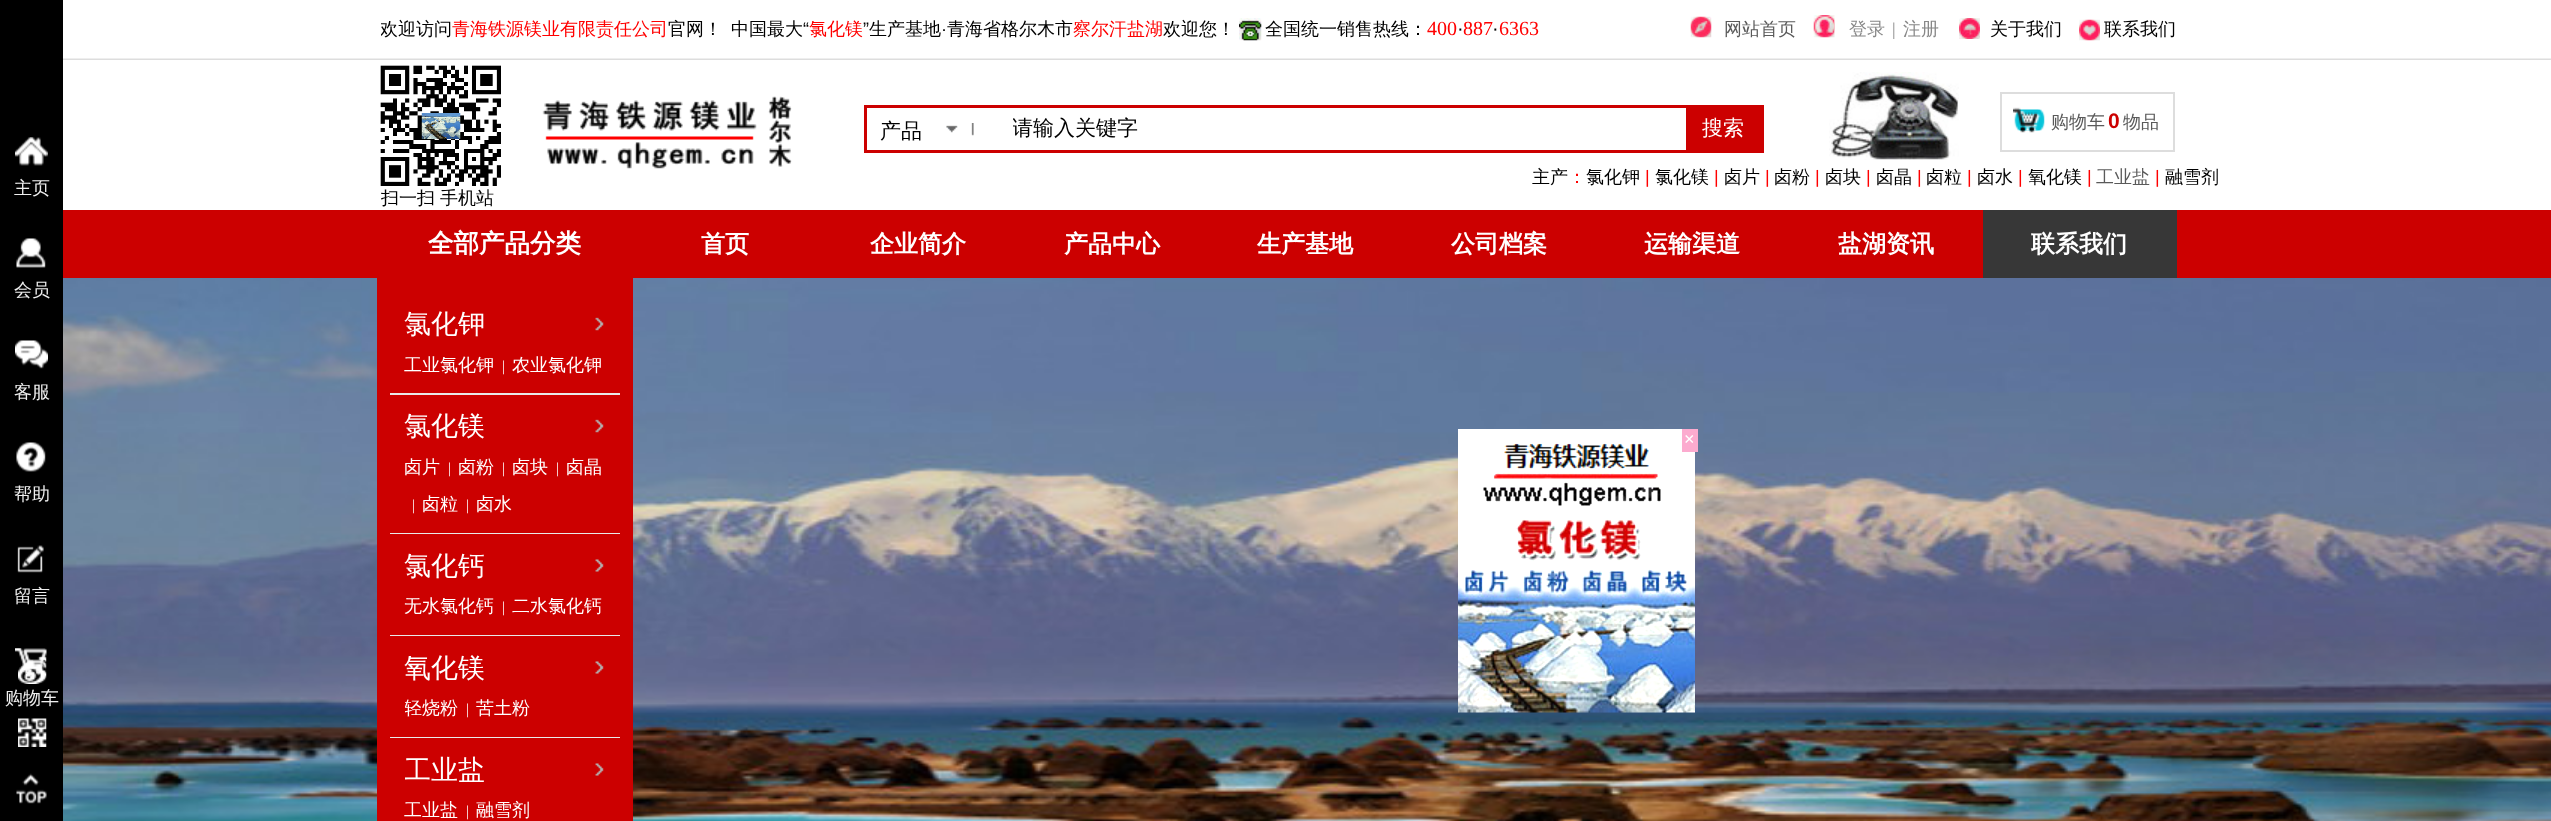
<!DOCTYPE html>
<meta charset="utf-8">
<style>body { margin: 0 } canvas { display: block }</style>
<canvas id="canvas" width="2551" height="821"></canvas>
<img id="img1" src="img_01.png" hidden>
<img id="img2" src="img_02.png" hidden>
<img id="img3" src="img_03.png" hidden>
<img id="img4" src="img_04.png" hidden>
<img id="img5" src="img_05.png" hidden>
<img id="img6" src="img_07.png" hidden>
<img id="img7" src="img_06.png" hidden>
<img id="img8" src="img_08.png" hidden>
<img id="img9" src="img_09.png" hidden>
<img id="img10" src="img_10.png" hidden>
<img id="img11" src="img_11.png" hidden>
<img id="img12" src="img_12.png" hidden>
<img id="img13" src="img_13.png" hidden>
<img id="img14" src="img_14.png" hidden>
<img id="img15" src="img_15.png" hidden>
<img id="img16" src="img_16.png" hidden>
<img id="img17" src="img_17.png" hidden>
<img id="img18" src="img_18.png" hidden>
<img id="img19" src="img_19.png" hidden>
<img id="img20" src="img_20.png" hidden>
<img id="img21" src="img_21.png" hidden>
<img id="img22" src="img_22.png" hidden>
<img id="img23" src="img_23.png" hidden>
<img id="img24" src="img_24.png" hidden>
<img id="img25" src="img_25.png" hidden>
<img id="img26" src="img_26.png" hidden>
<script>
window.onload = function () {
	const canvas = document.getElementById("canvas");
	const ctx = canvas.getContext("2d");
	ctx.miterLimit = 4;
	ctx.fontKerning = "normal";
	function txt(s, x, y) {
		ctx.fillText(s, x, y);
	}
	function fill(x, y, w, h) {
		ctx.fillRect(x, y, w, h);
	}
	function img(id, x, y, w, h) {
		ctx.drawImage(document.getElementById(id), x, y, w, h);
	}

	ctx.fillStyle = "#FFFFFF";
	fill(0, 0, 2551, 821);
	ctx.fillStyle = "#000000";
	fill(0, 0, 63, 821);
	img("img1", 15, 137, 33, 29);
	img("img2", 16, 238, 30, 30);
	img("img3", 15, 340, 33, 29);
	img("img4", 16, 442, 30, 30);
	img("img5", 17, 545, 27, 28);
	img("img6", 15, 648, 32, 28);
	img("img7", 18, 656, 29, 28);
	img("img8", 18, 718, 29, 29);
	img("img9", 16, 773, 31, 31);
	img("img10", 1239, 18, 23, 23);
	img("img11", 1690, 16, 22, 22);
	img("img12", 1813, 15, 22, 23);
	img("img13", 1959, 18, 21, 21);
	img("img14", 2079, 19, 21, 22);
	img("img15", 63, 58, 2488, 2);
	img("img16", 380, 65, 121, 121);
	img("img17", 542, 96, 250, 73);
	ctx.strokeStyle = "#CC0000";
	ctx.lineWidth = 3;
	ctx.strokeRect(865.5, 106.5, 897, 45);
	img("img18", 946, 123, 28, 13);
	ctx.fillStyle = "#CC0000";
	fill(1686, 108, 75, 42);
	img("img19", 1829, 72, 130, 88);
	img("img20", 2014, 109, 31, 22);
	ctx.strokeStyle = "#DDDDDD";
	ctx.lineWidth = 2;
	ctx.strokeRect(2001, 93, 173, 58);
	img("img21", 2013, 107, 25, 26);
	fill(63, 210, 2488, 68);
	ctx.fillStyle = "#373737";
	fill(1983, 210, 194, 68);
	img("img22", 63, 278, 2488, 543);
	ctx.fillStyle = "#CC0000";
	fill(377, 278, 256, 543);
	ctx.fillStyle = "#E9E9E9";
	fill(390, 393, 230, 2);
	img("img23", 595, 317, 9, 14);
	fill(390, 533, 230, 1);
	img("img23", 595, 419, 9, 14);
	fill(390, 635, 230, 1);
	img("img24", 595, 559, 9, 13);
	fill(390, 737, 230, 1);
	img("img24", 595, 661, 9, 13);
	img("img24", 595, 763, 9, 13);
	img("img25", 1458, 429, 237, 284);
	ctx.fillStyle = "#FCABCF";
	fill(1682, 429, 16, 23);
	img("img26", 1494, 477, 192, 225);
	ctx.font = "500 18px WenQuanYi Zen Hei";
	ctx.fillStyle = "#EFEFEF";
	txt("主页", 14, 194);
	txt("会员", 14, 296);
	txt("客服", 14, 398);
	txt("帮助", 14, 500);
	txt("留言", 14, 602);
	txt("购物车", 5, 704);
	ctx.save();
	ctx.beginPath();
	ctx.rect(381, 17, 356, 27);
	ctx.clip();
	ctx.fillStyle = "#000000";
	txt("欢迎访问", 380, 35);
	ctx.restore();
	ctx.fillStyle = "#FF0000";
	txt("青海铁源镁业有限责任公司", 452, 35);
	ctx.fillStyle = "#000000";
	txt("官网！", 668, 35);
	txt("中国最大", 731, 35);
	ctx.font = "18px Liberation Sans";
	txt("“", 803, 35);
	ctx.font = "500 18px WenQuanYi Zen Hei";
	ctx.fillStyle = "#FF0000";
	txt("氯化镁", 809, 35);
	ctx.font = "18px Liberation Sans";
	ctx.fillStyle = "#000000";
	txt("”", 863, 35);
	ctx.font = "500 18px WenQuanYi Zen Hei";
	txt("生产基地", 869, 35);
	ctx.font = "18px Liberation Sans";
	txt("·", 941, 35);
	ctx.font = "500 18px WenQuanYi Zen Hei";
	txt("青海省格尔木市", 947, 35);
	ctx.fillStyle = "#FF0000";
	txt("察尔汗盐湖", 1073, 35);
	ctx.fillStyle = "#000000";
	txt("欢迎您！", 1163, 35);
	txt("全国统一销售热线：", 1265, 35);
	ctx.font = "20px Liberation Serif";
	ctx.fillStyle = "#FF0000";
	txt("400", 1427, 35);
	ctx.font = "20px Liberation Sans";
	ctx.fillStyle = "#000000";
	txt("·", 1457, 35);
	ctx.font = "20px Liberation Serif";
	ctx.fillStyle = "#FF0000";
	txt("887", 1463, 35);
	ctx.font = "20px Liberation Sans";
	ctx.fillStyle = "#000000";
	txt("·", 1492, 35);
	ctx.font = "20px Liberation Serif";
	ctx.fillStyle = "#FF0000";
	txt("6363", 1499, 35);
	ctx.font = "500 18px WenQuanYi Zen Hei";
	ctx.fillStyle = "#5A5A5A";
	txt("网站首页", 1724, 35);
	ctx.fillStyle = "#888888";
	txt("登录", 1849, 35);
	ctx.font = "18px Liberation Serif";
	txt("|", 1892, 35);
	ctx.font = "500 18px WenQuanYi Zen Hei";
	txt("注册", 1903, 35);
	ctx.fillStyle = "#000000";
	txt("关于我们", 1990, 35);
	txt("联系我们", 2104, 35);
	ctx.font = "500 21px WenQuanYi Zen Hei";
	txt("产品", 880, 138);
	ctx.save();
	ctx.beginPath();
	ctx.rect(1013, 116, 666, 27);
	ctx.clip();
	txt("请输入关键字", 1012, 135);
	ctx.restore();
	ctx.fillStyle = "#FFFFFF";
	txt("搜索", 1702, 135);
	ctx.font = "500 18px WenQuanYi Zen Hei";
	ctx.fillStyle = "#5A5A5A";
	txt("购物车", 2051, 128);
	ctx.font = "bold 21px Liberation Sans";
	ctx.fillStyle = "#CC0000";
	txt("0", 2108, 128);
	ctx.font = "500 18px WenQuanYi Zen Hei";
	ctx.fillStyle = "#5A5A5A";
	txt("物品", 2123, 128);
	ctx.fillStyle = "#000000";
	txt("主产", 1532, 183);
	ctx.fillStyle = "#FF0000";
	txt("：", 1568, 183);
	ctx.fillStyle = "#000000";
	txt("氯化钾", 1586, 183);
	ctx.font = "18px Liberation Sans";
	ctx.fillStyle = "#FF0000";
	txt("|", 1645, 183);
	ctx.font = "500 18px WenQuanYi Zen Hei";
	ctx.fillStyle = "#000000";
	txt("氯化镁", 1655, 183);
	ctx.font = "18px Liberation Sans";
	ctx.fillStyle = "#FF0000";
	txt("|", 1714, 183);
	ctx.font = "500 18px WenQuanYi Zen Hei";
	ctx.fillStyle = "#000000";
	txt("卤片", 1724, 183);
	ctx.font = "18px Liberation Sans";
	ctx.fillStyle = "#FF0000";
	txt("|", 1765, 183);
	ctx.font = "500 18px WenQuanYi Zen Hei";
	ctx.fillStyle = "#000000";
	txt("卤粉", 1774, 183);
	ctx.font = "18px Liberation Sans";
	ctx.fillStyle = "#FF0000";
	txt("|", 1815, 183);
	ctx.font = "500 18px WenQuanYi Zen Hei";
	ctx.fillStyle = "#000000";
	txt("卤块", 1825, 183);
	ctx.font = "18px Liberation Sans";
	ctx.fillStyle = "#FF0000";
	txt("|", 1866, 183);
	ctx.font = "500 18px WenQuanYi Zen Hei";
	ctx.fillStyle = "#000000";
	txt("卤晶", 1876, 183);
	ctx.font = "18px Liberation Sans";
	ctx.fillStyle = "#FF0000";
	txt("|", 1917, 183);
	ctx.font = "500 18px WenQuanYi Zen Hei";
	ctx.fillStyle = "#000000";
	txt("卤粒", 1926, 183);
	ctx.font = "18px Liberation Sans";
	ctx.fillStyle = "#FF0000";
	txt("|", 1967, 183);
	ctx.font = "500 18px WenQuanYi Zen Hei";
	ctx.fillStyle = "#000000";
	txt("卤水", 1977, 183);
	ctx.font = "18px Liberation Sans";
	ctx.fillStyle = "#FF0000";
	txt("|", 2018, 183);
	ctx.font = "500 18px WenQuanYi Zen Hei";
	ctx.fillStyle = "#000000";
	txt("氧化镁", 2028, 183);
	ctx.font = "18px Liberation Sans";
	ctx.fillStyle = "#FF0000";
	txt("|", 2087, 183);
	ctx.font = "500 18px WenQuanYi Zen Hei";
	ctx.fillStyle = "#5A5A5A";
	txt("工业盐", 2096, 183);
	ctx.font = "18px Liberation Sans";
	ctx.fillStyle = "#FF0000";
	txt("|", 2155, 183);
	ctx.font = "500 18px WenQuanYi Zen Hei";
	ctx.fillStyle = "#000000";
	txt("融雪剂", 2165, 183);
	txt("扫一扫", 381, 204);
	txt("手机站", 440, 204);
	ctx.font = "bold 25.5px WenQuanYi Zen Hei";
	ctx.fillStyle = "#FFFFFF";
	txt("全部产品分类", 428, 252);
	ctx.font = "bold 24px WenQuanYi Zen Hei";
	txt("首页", 701, 252);
	txt("企业简介", 870, 252);
	txt("产品中心", 1064, 252);
	txt("生产基地", 1257, 252);
	txt("公司档案", 1451, 252);
	txt("运输渠道", 1644, 252);
	txt("盐湖资讯", 1838, 252);
	txt("联系我们", 2031, 252);
	ctx.font = "500 27px WenQuanYi Zen Hei";
	txt("氯化钾", 404, 333);
	ctx.font = "500 18px WenQuanYi Zen Hei";
	txt("工业氯化钾", 404, 371);
	ctx.font = "15px Liberation Serif";
	txt("|", 502, 371);
	ctx.font = "500 18px WenQuanYi Zen Hei";
	txt("农业氯化钾", 512, 371);
	ctx.font = "500 27px WenQuanYi Zen Hei";
	txt("氯化镁", 404, 435);
	ctx.font = "500 18px WenQuanYi Zen Hei";
	txt("卤片", 404, 473);
	ctx.font = "15px Liberation Serif";
	txt("|", 448, 473);
	ctx.font = "500 18px WenQuanYi Zen Hei";
	txt("卤粉", 458, 473);
	ctx.font = "15px Liberation Serif";
	txt("|", 502, 473);
	ctx.font = "500 18px WenQuanYi Zen Hei";
	txt("卤块", 512, 473);
	ctx.font = "15px Liberation Serif";
	txt("|", 556, 473);
	ctx.font = "500 18px WenQuanYi Zen Hei";
	txt("卤晶", 566, 473);
	ctx.font = "15px Liberation Serif";
	txt("|", 412, 510);
	ctx.font = "500 18px WenQuanYi Zen Hei";
	txt("卤粒", 422, 510);
	ctx.font = "15px Liberation Serif";
	txt("|", 466, 510);
	ctx.font = "500 18px WenQuanYi Zen Hei";
	txt("卤水", 476, 510);
	ctx.font = "500 27px WenQuanYi Zen Hei";
	txt("氯化钙", 404, 575);
	ctx.font = "500 18px WenQuanYi Zen Hei";
	txt("无水氯化钙", 404, 612);
	ctx.font = "15px Liberation Serif";
	txt("|", 502, 612);
	ctx.font = "500 18px WenQuanYi Zen Hei";
	txt("二水氯化钙", 512, 612);
	ctx.font = "500 27px WenQuanYi Zen Hei";
	txt("氧化镁", 404, 677);
	ctx.save();
	ctx.beginPath();
	ctx.rect(405, 645, 215, 83);
	ctx.clip();
	ctx.font = "500 18px WenQuanYi Zen Hei";
	txt("轻烧粉", 404, 714);
	ctx.restore();
	ctx.font = "15px Liberation Serif";
	txt("|", 466, 714);
	ctx.font = "500 18px WenQuanYi Zen Hei";
	txt("苦土粉", 476, 714);
	ctx.save();
	ctx.beginPath();
	ctx.rect(405, 747, 215, 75);
	ctx.clip();
	ctx.font = "500 27px WenQuanYi Zen Hei";
	txt("工业盐", 404, 779);
	ctx.restore();
	txt("工业盐", 404, 816);
	ctx.font = "15px Liberation Serif";
	txt("|", 466, 816);
	ctx.font = "500 18px WenQuanYi Zen Hei";
	txt("融雪剂", 476, 816);
	ctx.font = "18px Liberation Sans";
	txt("×", 1684, 445);
};
</script>
